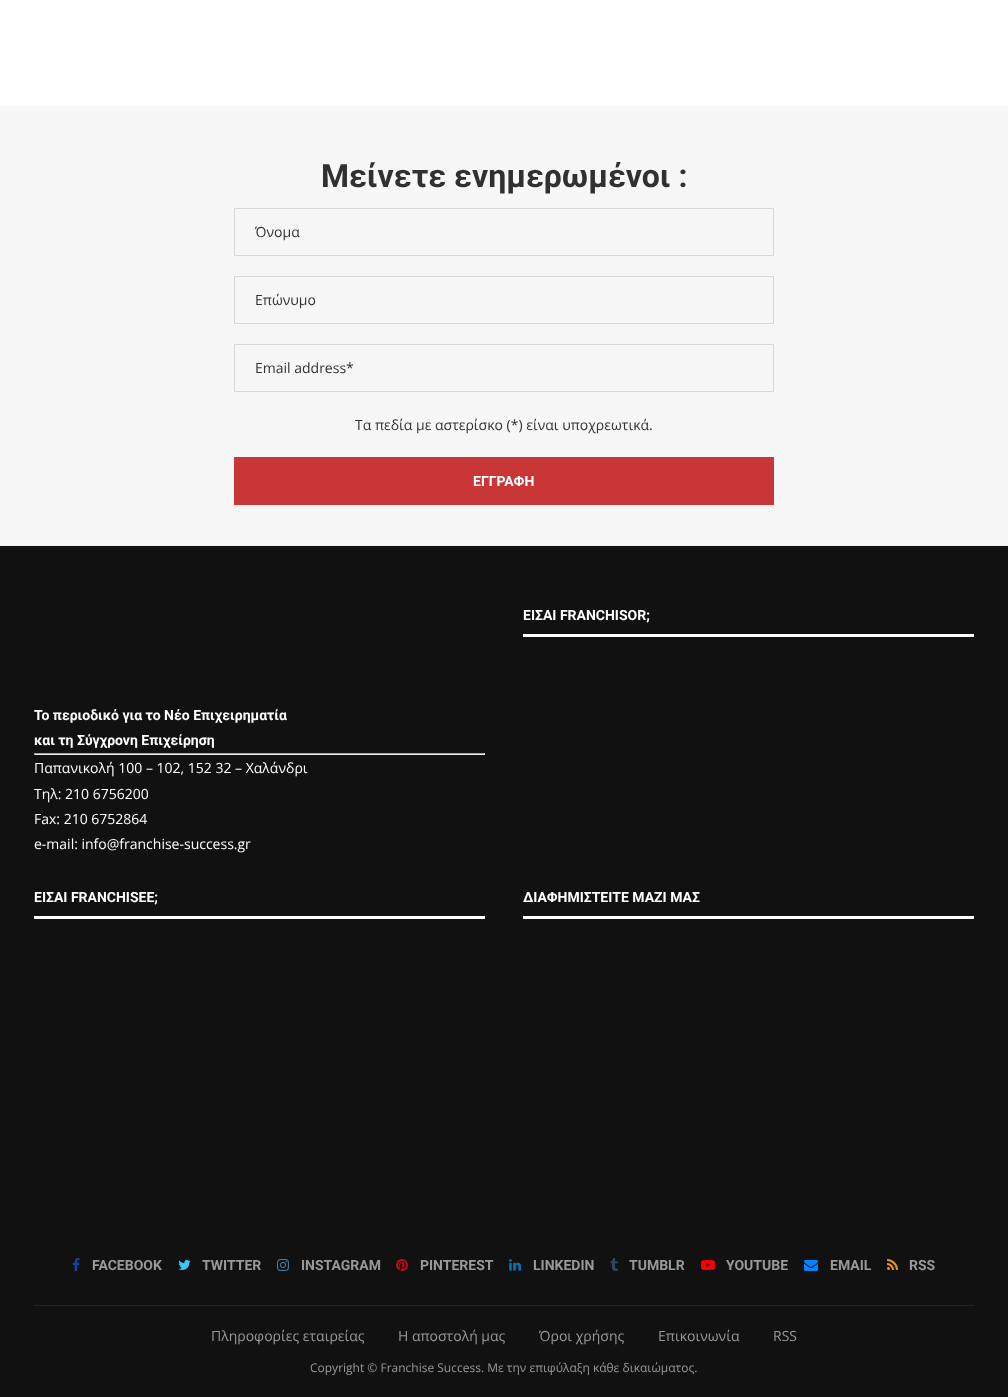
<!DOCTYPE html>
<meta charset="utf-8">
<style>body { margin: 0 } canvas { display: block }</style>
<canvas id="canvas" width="1008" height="1397"></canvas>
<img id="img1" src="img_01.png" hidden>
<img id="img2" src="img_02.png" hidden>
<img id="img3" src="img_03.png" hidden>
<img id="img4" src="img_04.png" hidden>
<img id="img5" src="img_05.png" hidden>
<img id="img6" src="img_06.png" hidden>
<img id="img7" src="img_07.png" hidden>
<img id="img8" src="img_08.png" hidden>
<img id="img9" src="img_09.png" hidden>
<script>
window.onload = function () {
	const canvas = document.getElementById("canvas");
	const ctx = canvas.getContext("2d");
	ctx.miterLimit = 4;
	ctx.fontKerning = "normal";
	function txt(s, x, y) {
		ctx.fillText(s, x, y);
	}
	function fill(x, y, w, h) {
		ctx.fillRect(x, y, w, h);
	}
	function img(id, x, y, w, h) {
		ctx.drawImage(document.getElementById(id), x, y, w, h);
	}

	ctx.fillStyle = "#FFFFFF";
	fill(0, 0, 1008, 1397);
	ctx.fillStyle = "#F7F7F7";
	fill(0, 106, 1008, 439);
	ctx.strokeStyle = "#D7D7DA";
	ctx.strokeRect(234.5, 208.5, 539, 47);
	ctx.strokeRect(234.5, 276.5, 539, 47);
	ctx.strokeRect(234.5, 344.5, 539, 47);
	ctx.fillStyle = "#C93638";
	fill(234, 457, 540, 48);
	ctx.fillStyle = "#111111";
	fill(0, 546, 1008, 851);
	ctx.fillStyle = "#EEEEEE";
	fill(0, 545, 1008, 1);
	ctx.fillStyle = "#FFFFFF";
	fill(523, 634, 451, 3);
	ctx.fillStyle = "#9F9F9F";
	fill(34, 753, 451, 1);
	ctx.fillStyle = "#EEEEEE";
	fill(484, 753, 1, 2);
	fill(34, 754, 451, 1);
	ctx.fillStyle = "#9F9F9F";
	fill(34, 753, 1, 2);
	ctx.fillStyle = "#FFFFFF";
	fill(34, 916, 451, 3);
	fill(523, 916, 451, 3);
	ctx.fillStyle = "#212121";
	fill(34, 1305, 940, 1);
	img("img1", 72, 1258, 8, 13);
	img("img2", 178, 1260, 13, 10);
	img("img3", 277, 1259, 12, 12);
	img("img4", 396, 1259, 12, 12);
	img("img5", 509, 1259, 12, 12);
	img("img6", 610, 1258, 8, 13);
	img("img7", 701, 1260, 14, 10);
	img("img8", 804, 1260, 14, 11);
	img("img9", 887, 1259, 11, 11);
	ctx.font = "bold 32px Roboto";
	ctx.fillStyle = "#313131";
	txt("Μείνετε ενημερωμένοι :", 321, 187);
	ctx.font = "14px Open Sans";
	txt("Όνομα", 255, 237);
	txt("Επώνυμο", 255, 305);
	txt("Email address*", 255, 373);
	txt("Τα πεδία με αστερίσκο (*) είναι υποχρεωτικά.", 355, 430);
	ctx.font = "bold 14px Roboto";
	ctx.fillStyle = "#FFFFFF";
	txt("ΕΓΓΡΑΦΗ", 473, 486);
	txt("ΕΙΣΑΙ FRANCHISOR;", 523, 620);
	txt("Το περιοδικό για το Νέο Επιχειρηματία", 34, 720);
	txt("και τη Σύγχρονη Επιχείρηση", 34, 745);
	ctx.font = "14px Open Sans";
	txt("Παπανικολή 100 – 102, 152 32 – Χαλάνδρι", 34, 773);
	txt("Tηλ: 210 6756200", 34, 799);
	txt("Fax: 210 6752864", 34, 824);
	txt("e-mail: info@franchise-success.gr", 34, 849);
	ctx.font = "bold 14px Roboto";
	txt("ΕΙΣΑΙ FRANCHISEE;", 34, 902);
	txt("ΔΙΑΦΗΜΙΣΤΕΙΤΕ ΜΑΖΙ ΜΑΣ", 523, 902);
	ctx.fillStyle = "#999999";
	txt("FACEBOOK", 92, 1270);
	txt("TWITTER", 202, 1270);
	txt("INSTAGRAM", 301, 1270);
	txt("PINTEREST", 420, 1270);
	txt("LINKEDIN", 533, 1270);
	txt("TUMBLR", 629, 1270);
	txt("YOUTUBE", 726, 1270);
	txt("EMAIL", 830, 1270);
	txt("RSS", 909, 1270);
	ctx.font = "14px Open Sans";
	txt("Πληροφορίες εταιρείας", 211, 1341);
	txt("Η αποστολή μας", 398, 1341);
	txt("Όροι χρήσης", 539, 1341);
	txt("Επικοινωνία", 658, 1341);
	txt("RSS", 773, 1341);
	ctx.font = "12px Open Sans";
	txt("Copyright © Franchise Success. Με την επιφύλαξη κάθε δικαιώματος.", 310, 1372);
};
</script>
